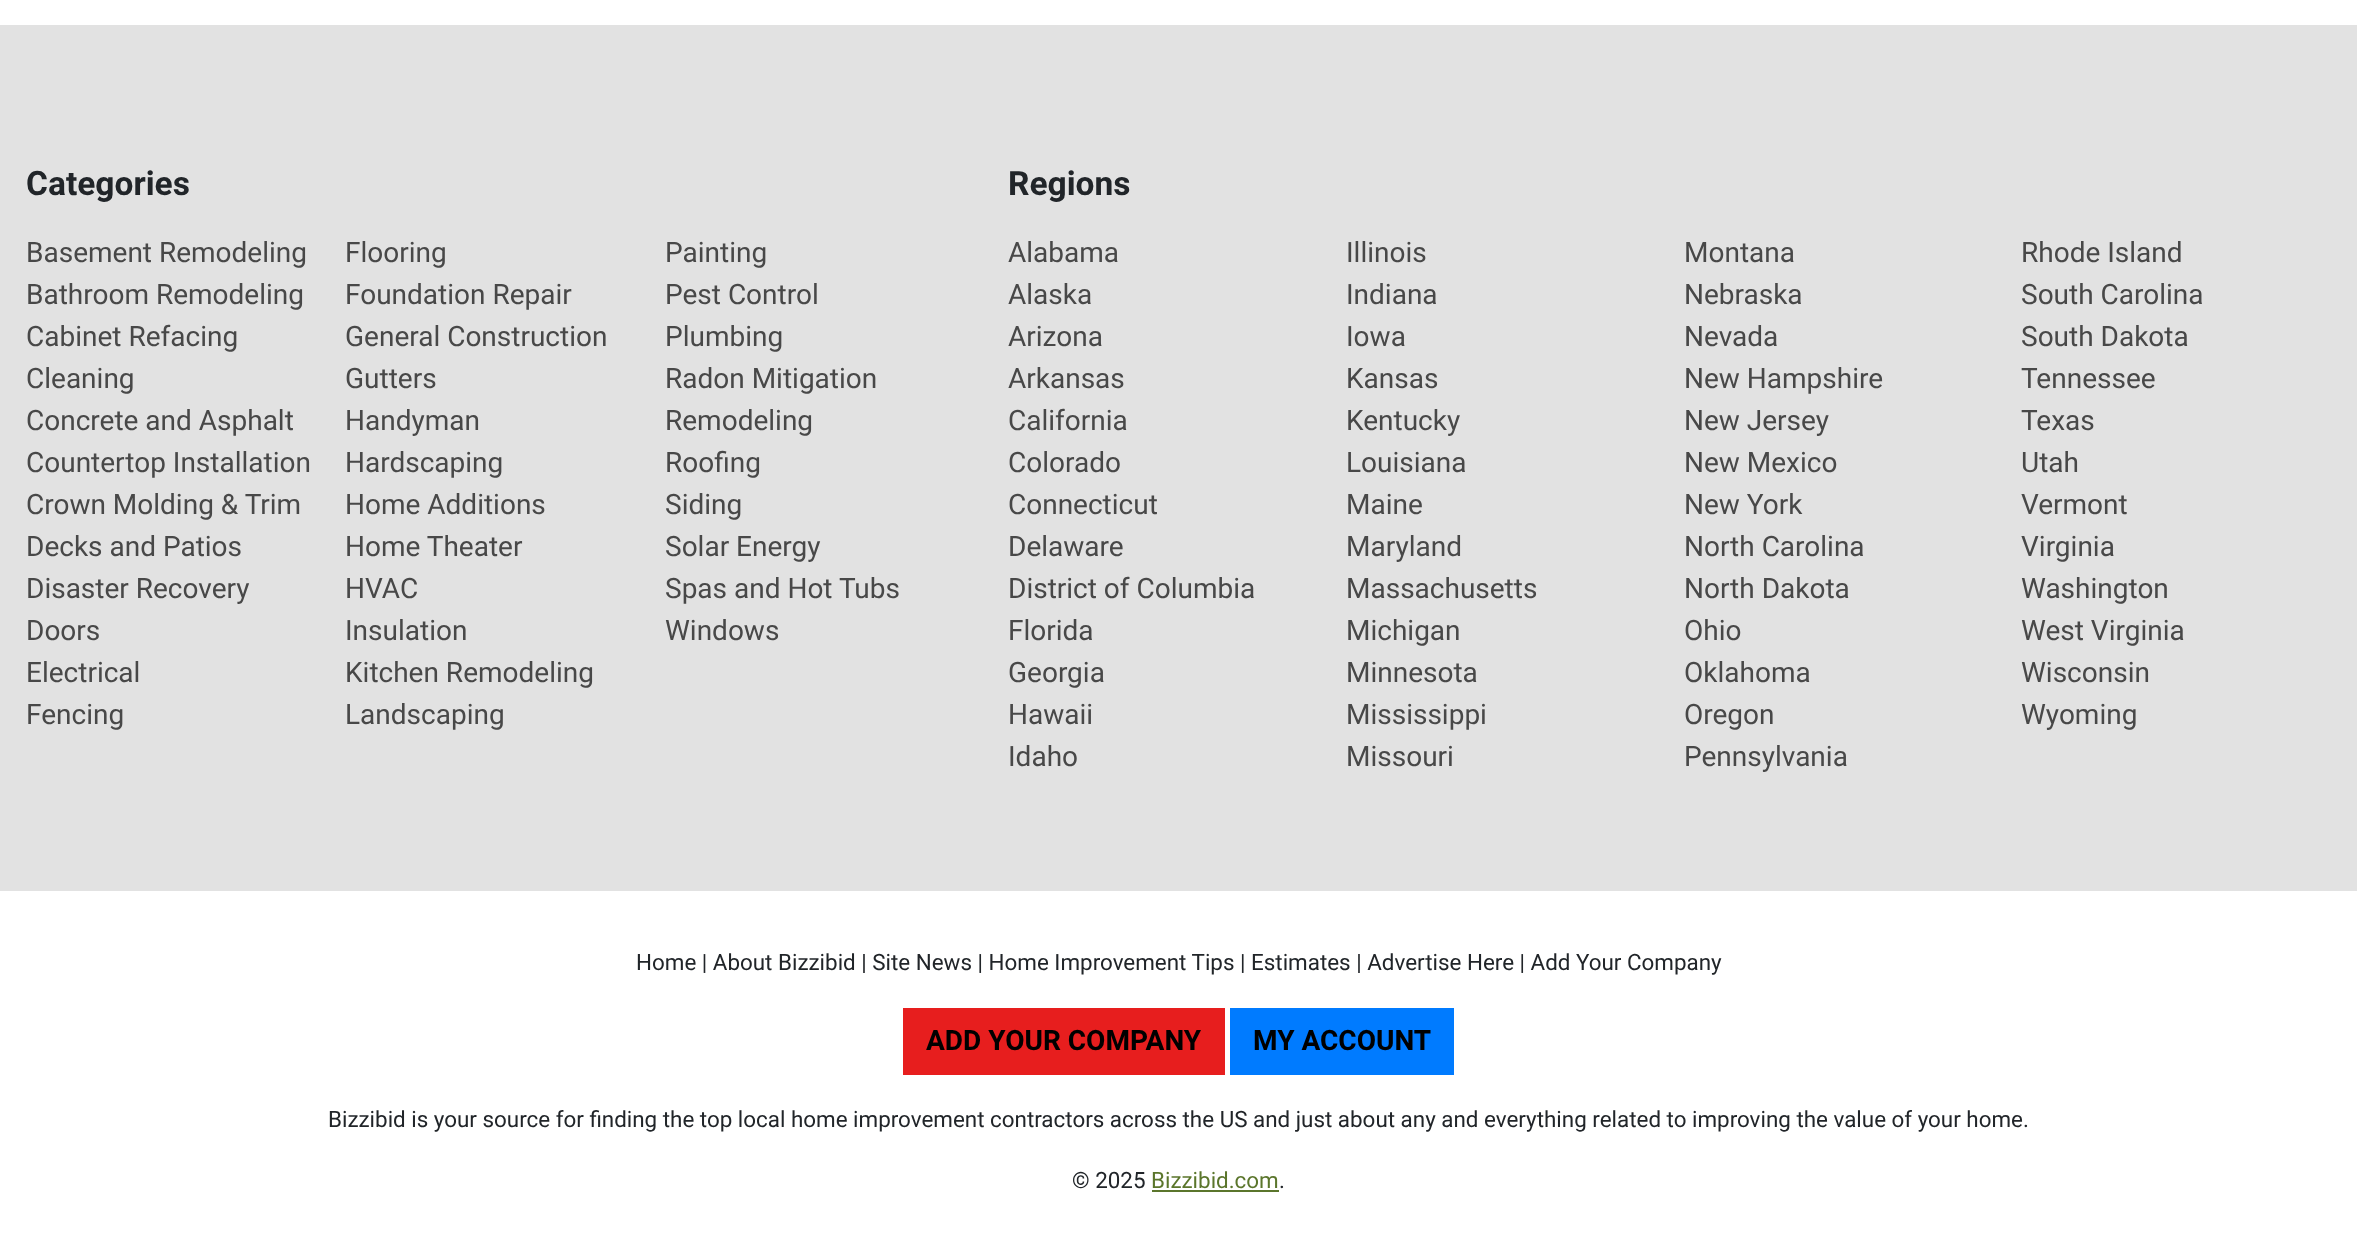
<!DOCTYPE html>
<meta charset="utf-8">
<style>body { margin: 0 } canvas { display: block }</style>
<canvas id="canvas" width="2357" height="1253"></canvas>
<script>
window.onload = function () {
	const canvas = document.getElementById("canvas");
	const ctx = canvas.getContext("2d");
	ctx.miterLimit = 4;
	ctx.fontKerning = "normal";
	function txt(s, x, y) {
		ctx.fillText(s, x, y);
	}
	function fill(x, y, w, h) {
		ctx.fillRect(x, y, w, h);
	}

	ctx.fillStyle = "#FFFFFF";
	fill(0, 0, 2357, 1253);
	ctx.fillStyle = "#E2E2E2";
	fill(0, 25, 2357, 866);
	ctx.fillStyle = "#E71E1E";
	fill(903, 1008, 322, 67);
	ctx.fillStyle = "#007BFF";
	fill(1230, 1008, 224, 67);
	ctx.fillStyle = "#5B762C";
	fill(1152, 1190, 127, 2);
	ctx.font = "bold 33.5px Roboto";
	ctx.fillStyle = "#212529";
	txt("Categories", 26, 195);
	ctx.font = "28px Roboto";
	ctx.fillStyle = "#484848";
	txt("Basement Remodeling", 26, 262);
	txt("Flooring", 345, 262);
	txt("Painting", 665, 262);
	txt("Bathroom Remodeling", 26, 304);
	txt("Foundation Repair", 345, 304);
	txt("Pest Control", 665, 304);
	txt("Cabinet Refacing", 26, 346);
	txt("General Construction", 345, 346);
	txt("Plumbing", 665, 346);
	txt("Cleaning", 26, 388);
	txt("Gutters", 345, 388);
	txt("Radon Mitigation", 665, 388);
	txt("Concrete and Asphalt", 26, 430);
	txt("Handyman", 345, 430);
	txt("Remodeling", 665, 430);
	txt("Countertop Installation", 26, 472);
	txt("Hardscaping", 345, 472);
	txt("Roofing", 665, 472);
	txt("Crown Molding & Trim", 26, 514);
	txt("Home Additions", 345, 514);
	txt("Siding", 665, 514);
	txt("Decks and Patios", 26, 556);
	txt("Home Theater", 345, 556);
	txt("Solar Energy", 665, 556);
	txt("Disaster Recovery", 26, 598);
	txt("HVAC", 345, 598);
	txt("Spas and Hot Tubs", 665, 598);
	txt("Doors", 26, 640);
	txt("Insulation", 345, 640);
	txt("Windows", 665, 640);
	txt("Electrical", 26, 682);
	txt("Kitchen Remodeling", 345, 682);
	txt("Fencing", 26, 724);
	txt("Landscaping", 345, 724);
	ctx.font = "bold 33.5px Roboto";
	ctx.fillStyle = "#212529";
	txt("Regions", 1008, 195);
	ctx.font = "28px Roboto";
	ctx.fillStyle = "#484848";
	txt("Alabama", 1008, 262);
	txt("Illinois", 1346, 262);
	txt("Montana", 1684, 262);
	txt("Rhode Island", 2021, 262);
	txt("Alaska", 1008, 304);
	txt("Indiana", 1346, 304);
	txt("Nebraska", 1684, 304);
	txt("South Carolina", 2021, 304);
	txt("Arizona", 1008, 346);
	txt("Iowa", 1346, 346);
	txt("Nevada", 1684, 346);
	txt("South Dakota", 2021, 346);
	txt("Arkansas", 1008, 388);
	txt("Kansas", 1346, 388);
	txt("New Hampshire", 1684, 388);
	txt("Tennessee", 2021, 388);
	txt("California", 1008, 430);
	txt("Kentucky", 1346, 430);
	txt("New Jersey", 1684, 430);
	txt("Texas", 2021, 430);
	txt("Colorado", 1008, 472);
	txt("Louisiana", 1346, 472);
	txt("New Mexico", 1684, 472);
	txt("Utah", 2021, 472);
	txt("Connecticut", 1008, 514);
	txt("Maine", 1346, 514);
	txt("New York", 1684, 514);
	txt("Vermont", 2021, 514);
	txt("Delaware", 1008, 556);
	txt("Maryland", 1346, 556);
	txt("North Carolina", 1684, 556);
	txt("Virginia", 2021, 556);
	txt("District of Columbia", 1008, 598);
	txt("Massachusetts", 1346, 598);
	txt("North Dakota", 1684, 598);
	txt("Washington", 2021, 598);
	txt("Florida", 1008, 640);
	txt("Michigan", 1346, 640);
	txt("Ohio", 1684, 640);
	txt("West Virginia", 2021, 640);
	txt("Georgia", 1008, 682);
	txt("Minnesota", 1346, 682);
	txt("Oklahoma", 1684, 682);
	txt("Wisconsin", 2021, 682);
	txt("Hawaii", 1008, 724);
	txt("Mississippi", 1346, 724);
	txt("Oregon", 1684, 724);
	txt("Wyoming", 2021, 724);
	txt("Idaho", 1008, 766);
	txt("Missouri", 1346, 766);
	txt("Pennsylvania", 1684, 766);
	ctx.font = "22.4px Roboto";
	ctx.fillStyle = "#212529";
	txt("Home | About Bizzibid | Site News | Home Improvement Tips | Estimates | Advertise Here | Add Your Company", 636, 970);
	ctx.font = "bold 28px Roboto";
	ctx.fillStyle = "#000000";
	txt("ADD YOUR COMPANY", 926, 1050);
	txt("MY ACCOUNT", 1253, 1050);
	ctx.font = "22.4px Roboto";
	ctx.fillStyle = "#212529";
	txt("Bizzibid is your source for finding the top local home improvement contractors across the US and just about any and everything related to improving the value of your home.", 328, 1127);
	txt("© 2025", 1072, 1188);
	ctx.fillStyle = "#5B762C";
	txt("Bizzibid.com", 1151, 1188);
	ctx.fillStyle = "#212529";
	txt(".", 1279, 1188);
};
</script>
